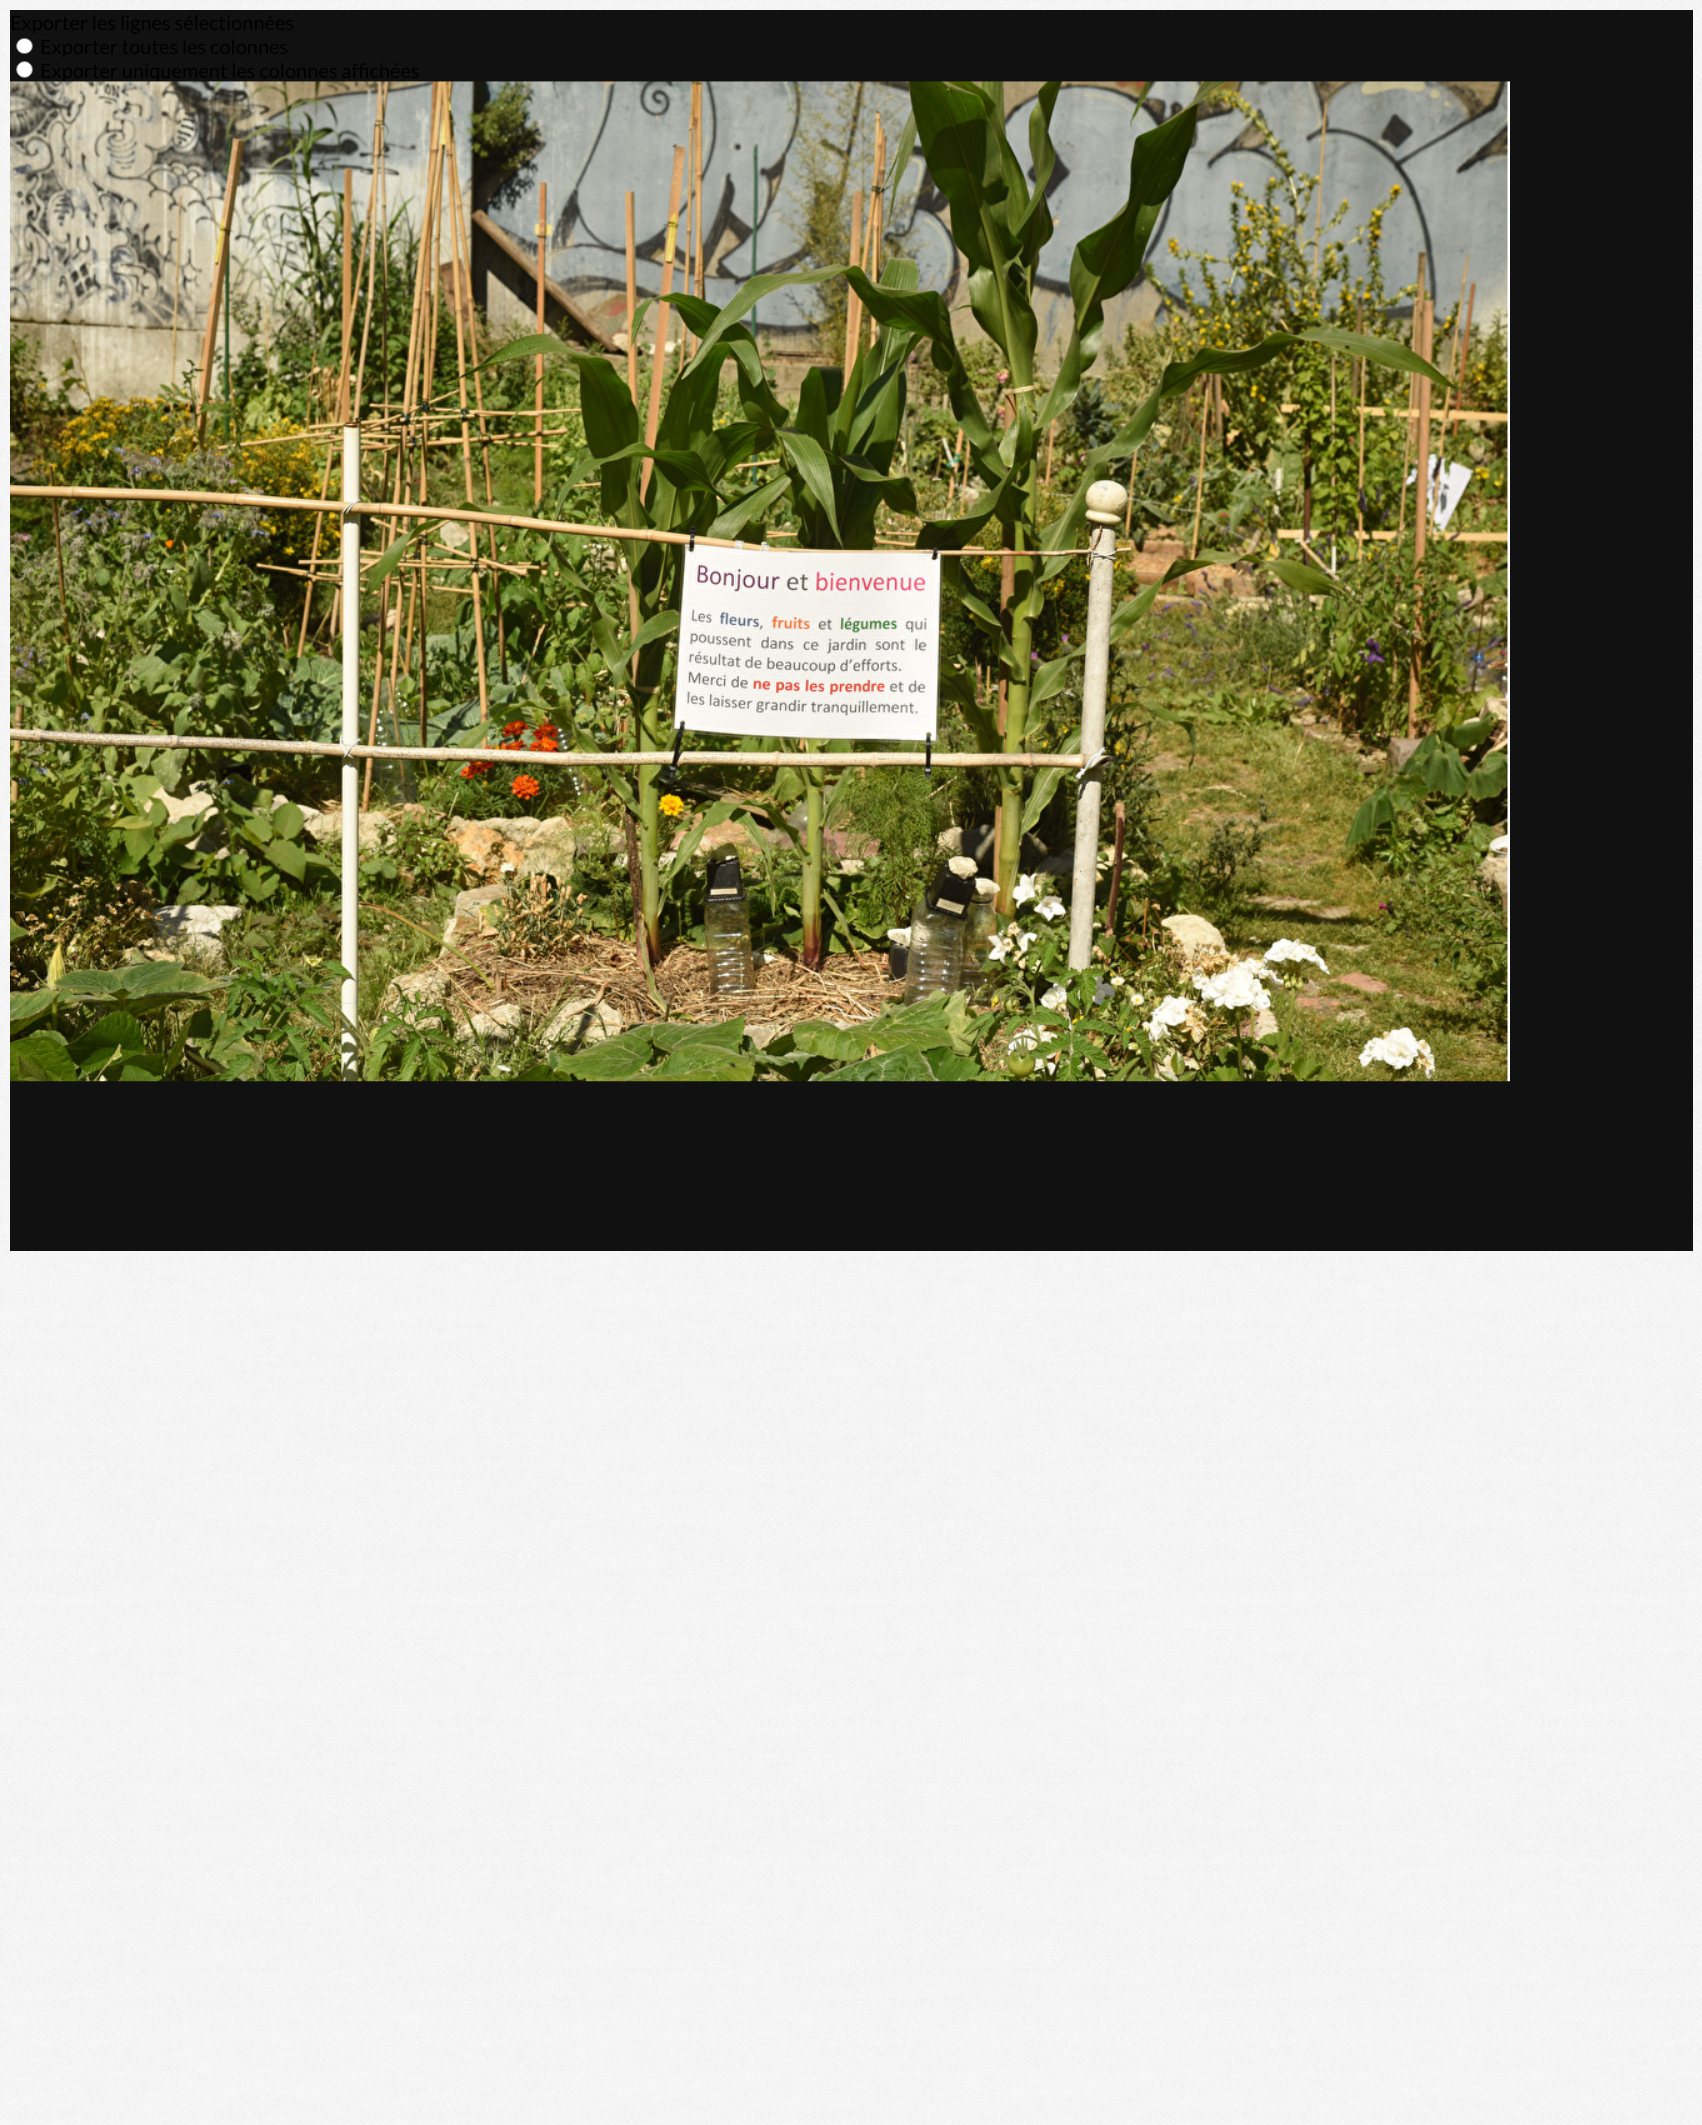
<!DOCTYPE html>
<meta charset="utf-8">
<style>body { margin: 0 } canvas { display: block }</style>
<canvas id="canvas" width="1702" height="2125"></canvas>
<img id="img1" src="img_01.png" hidden>
<img id="img2" src="img_02.png" hidden>
<script>
window.onload = function () {
	const canvas = document.getElementById("canvas");
	const ctx = canvas.getContext("2d");
	ctx.miterLimit = 4;
	ctx.fontKerning = "normal";
	function txt(s, x, y) {
		ctx.fillText(s, x, y);
	}
	function fill(x, y, w, h) {
		ctx.fillRect(x, y, w, h);
	}
	function img(id, x, y, w, h) {
		ctx.drawImage(document.getElementById(id), x, y, w, h);
	}

	ctx.fillStyle = "#FFFFFF";
	fill(0, 0, 1702, 2125);
	img("img1", 0, 0, 1702, 2125);
	ctx.fillStyle = "#111111";
	fill(10, 10, 1683, 1241);
	ctx.fillStyle = "#FFFFFF";
	ctx.beginPath();
	ctx.roundRect(16.5, 38.5, 16, 15, 7.5);
	ctx.fill();
	ctx.strokeStyle = "#767676";
	ctx.stroke();
	ctx.beginPath();
	ctx.arc(24.5, 69.5, 8, 0, Math.PI * 2);
	ctx.fill();
	ctx.stroke();
	ctx.font = "20px Lato";
	ctx.fillStyle = "#000000";
	txt("Exporter les lignes sélectionnées", 10, 30);
	txt("Exporter toutes les colonnes", 40, 54);
	txt("Exporter uniquement les colonnes affichées", 40, 78);
	img("img2", 10, 81, 1500, 1001);
};
</script>
